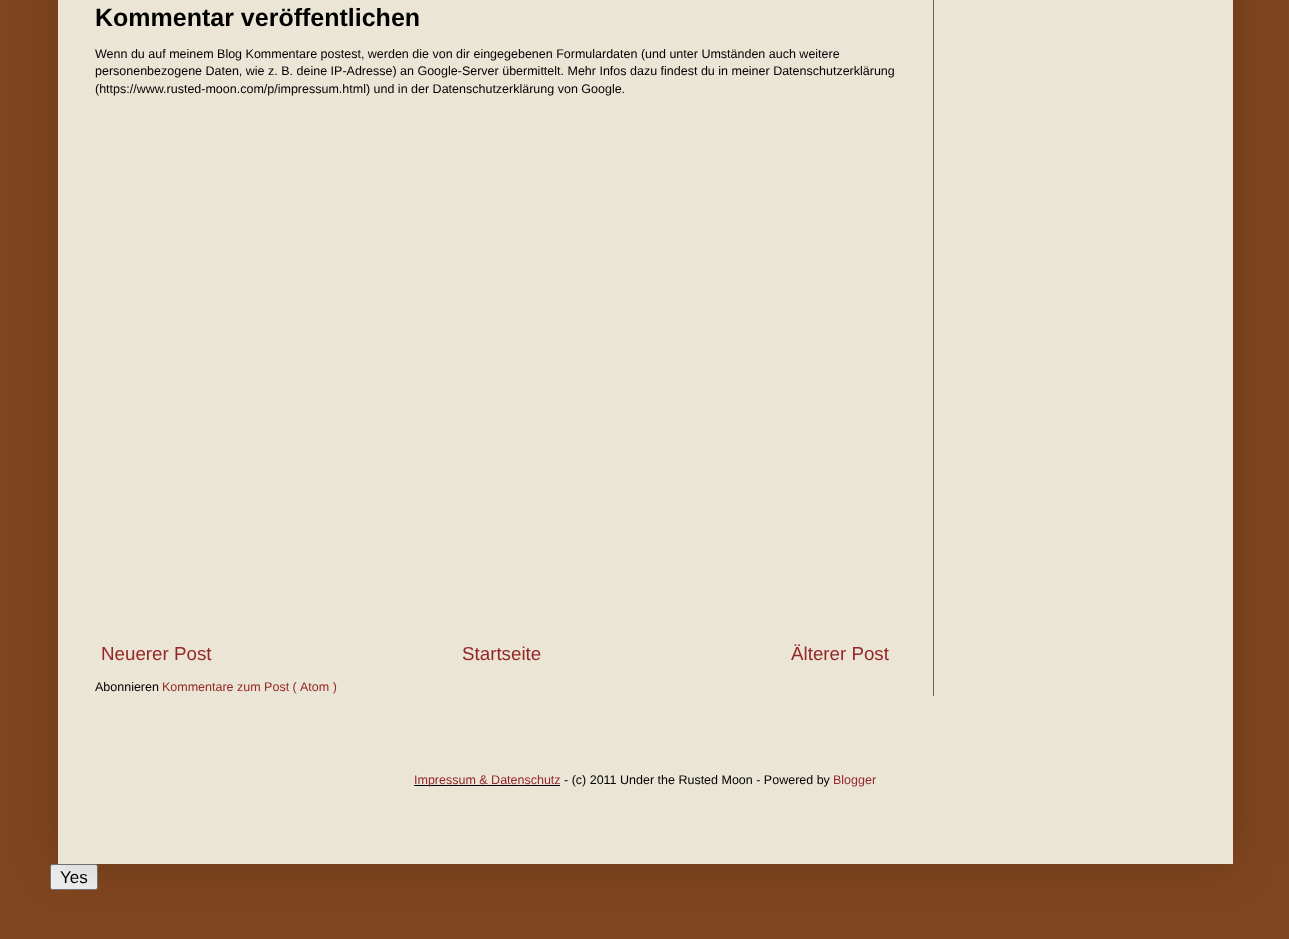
<!DOCTYPE html>
<meta charset="utf-8">
<style>body { margin: 0 } canvas { display: block }</style>
<canvas id="canvas" width="1289" height="939"></canvas>
<script>
window.onload = function () {
	const canvas = document.getElementById("canvas");
	const ctx = canvas.getContext("2d");
	ctx.miterLimit = 4;
	ctx.fontKerning = "normal";
	function txt(s, x, y) {
		ctx.fillText(s, x, y);
	}
	function fill(x, y, w, h) {
		ctx.fillRect(x, y, w, h);
	}

	ctx.fillStyle = "#7F451F";
	fill(0, 0, 1289, 939);
	ctx.fillStyle = "#EFEFEF";
	ctx.beginPath();
	ctx.roundRect(50.5, 864.5, 47, 25, 2);
	ctx.fill();
	ctx.strokeStyle = "#767676";
	ctx.stroke();
	ctx.fillStyle = "rgba(0, 0, 0, 0.15)";
	ctx.filter = "blur(25px)";
	ctx.beginPath();
	ctx.rect(58, -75, 1175, 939);
	ctx.fill();
	ctx.filter = "none";
	ctx.fillStyle = "#EBE5D6";
	fill(58, 0, 1175, 864);
	ctx.fillStyle = "#666666";
	fill(933, 0, 1, 696);
	ctx.fillStyle = "#000000";
	fill(414, 785, 146, 1);
	ctx.font = "bold 25px Liberation Sans";
	txt("Kommentar veröffentlichen", 95, 26);
	ctx.font = "12.5px Liberation Sans";
	txt("Wenn du auf meinem Blog Kommentare postest, werden die von dir eingegebenen Formulardaten (und unter Umständen auch weitere", 95, 58);
	txt("personenbezogene Daten, wie z. B. deine IP-Adresse) an Google-Server übermittelt. Mehr Infos dazu findest du in meiner Datenschutzerklärung", 95, 75);
	txt("(https://www.rusted-moon.com/p/impressum.html) und in der Datenschutzerklärung von Google.", 95, 93);
	ctx.font = "18.75px Liberation Sans";
	ctx.fillStyle = "#942727";
	txt("Neuerer Post", 101, 660);
	txt("Startseite", 462, 660);
	txt("Älterer Post", 791, 660);
	ctx.font = "12.5px Liberation Sans";
	ctx.fillStyle = "#000000";
	txt("Abonnieren", 95, 691);
	ctx.fillStyle = "#942727";
	txt("Kommentare zum Post (", 162, 691);
	txt("Atom )", 300, 691);
	txt("Impressum & Datenschutz", 414, 784);
	ctx.fillStyle = "#000000";
	txt("- (c) 2011 Under the Rusted Moon - Powered by", 564, 784);
	ctx.fillStyle = "#942727";
	txt("Blogger", 833, 784);
	ctx.font = "17px Liberation Sans";
	ctx.fillStyle = "#000000";
	txt("Yes", 60, 883);
};
</script>
